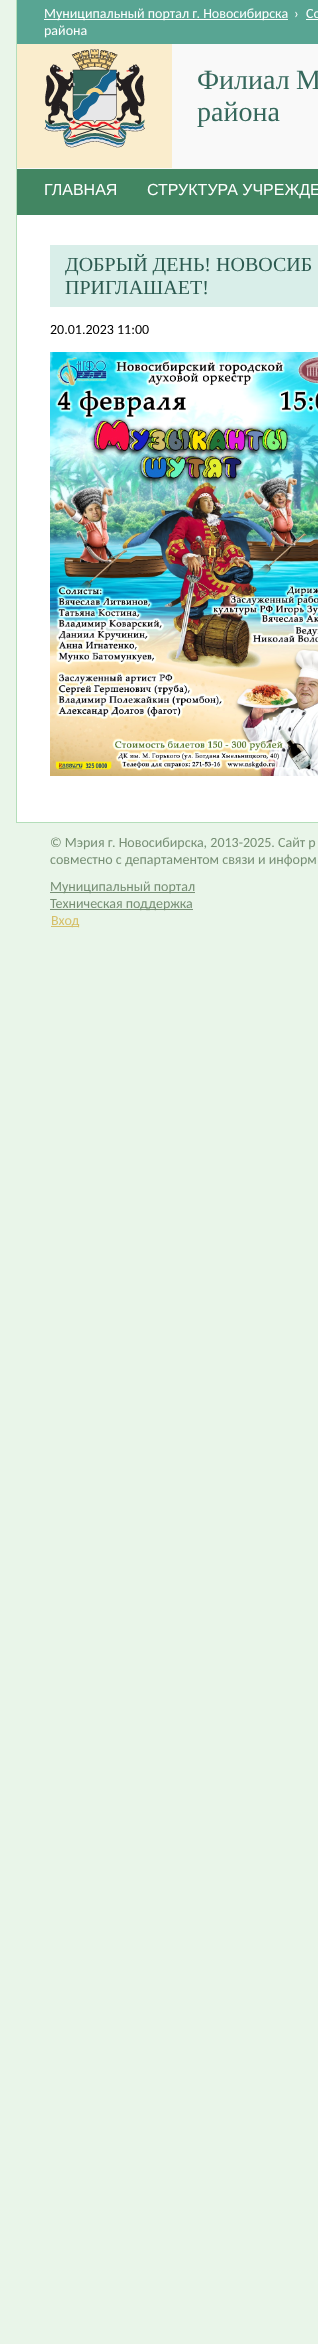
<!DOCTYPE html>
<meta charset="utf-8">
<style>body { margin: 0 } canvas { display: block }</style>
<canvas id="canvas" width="318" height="2344"></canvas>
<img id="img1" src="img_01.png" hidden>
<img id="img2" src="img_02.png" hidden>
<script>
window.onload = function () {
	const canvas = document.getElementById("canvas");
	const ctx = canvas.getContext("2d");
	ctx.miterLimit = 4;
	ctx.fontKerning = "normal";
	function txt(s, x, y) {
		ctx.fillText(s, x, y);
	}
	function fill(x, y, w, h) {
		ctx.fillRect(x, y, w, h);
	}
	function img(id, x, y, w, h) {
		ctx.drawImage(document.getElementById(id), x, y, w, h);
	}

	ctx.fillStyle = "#E9F5E9";
	fill(0, 0, 318, 2344);
	ctx.fillStyle = "#FFFFFF";
	fill(17, 215, 301, 607);
	ctx.fillStyle = "#B4DEBA";
	fill(16, 822, 302, 1);
	fill(16, 0, 1, 823);
	ctx.fillStyle = "#F9F9F9";
	fill(17, 44, 301, 125);
	ctx.fillStyle = "#58A593";
	fill(17, 0, 301, 44);
	ctx.fillStyle = "#FFFFFF";
	fill(44, 19, 244, 1);
	fill(306, 19, 12, 1);
	ctx.fillStyle = "#FAEDCD";
	fill(17, 44, 155, 124);
	img("img1", 44, 49, 101, 99);
	ctx.fillStyle = "#428662";
	fill(17, 169, 301, 46);
	ctx.fillStyle = "#D9EEE9";
	fill(50, 245, 268, 62);
	img("img2", 50, 352, 268, 424);
	ctx.fillStyle = "#778F75";
	fill(50, 892, 145, 1);
	fill(50, 909, 143, 1);
	ctx.fillStyle = "#D6C06A";
	fill(51, 926, 28, 1);
	ctx.font = "14px Carlito";
	ctx.fillStyle = "#FFFFFF";
	txt("Муниципальный портал г. Новосибирска", 44, 18);
	txt("›", 294, 18);
	txt("Со", 306, 18);
	txt("района", 44, 35);
	ctx.font = "28px Liberation Serif";
	ctx.fillStyle = "#36685C";
	txt("Филиал", 197, 89);
	txt("М", 296, 89);
	txt("района", 197, 121);
	ctx.font = "16px Liberation Sans";
	ctx.fillStyle = "#FFFFFF";
	txt("ГЛАВНАЯ", 44, 195);
	txt("СТРУКТУРА УЧРЕЖДЕ", 147, 195);
	ctx.font = "20px Liberation Serif";
	ctx.fillStyle = "#2C5A50";
	txt("ДОБРЫЙ ДЕНЬ! НОВОСИБ", 65, 271);
	txt("ПРИГЛАШАЕТ!", 65, 294);
	ctx.font = "14px Carlito";
	ctx.fillStyle = "#000000";
	txt("20.01.2023 11:00", 50, 334);
	ctx.fillStyle = "#778F75";
	txt("© Мэрия г. Новосибирска, 2013-2025. Сайт р", 50, 847);
	txt("совместно с департаментом связи и информ", 50, 864);
	txt("Муниципальный портал", 50, 891);
	txt("Техническая поддержка", 50, 908);
	ctx.fillStyle = "#D6C06A";
	txt("Вход", 51, 925);
};
</script>
